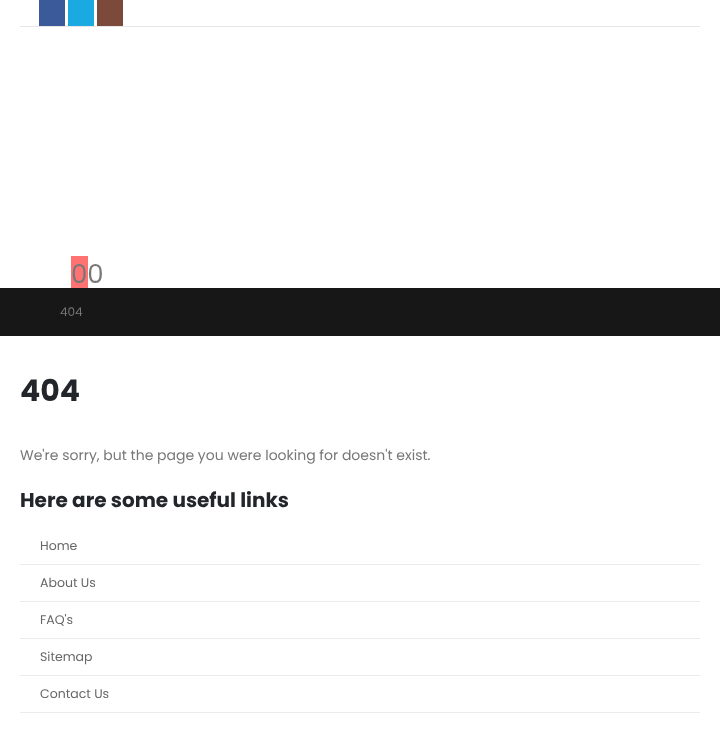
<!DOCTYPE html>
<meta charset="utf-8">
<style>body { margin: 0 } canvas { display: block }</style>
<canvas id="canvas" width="720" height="734"></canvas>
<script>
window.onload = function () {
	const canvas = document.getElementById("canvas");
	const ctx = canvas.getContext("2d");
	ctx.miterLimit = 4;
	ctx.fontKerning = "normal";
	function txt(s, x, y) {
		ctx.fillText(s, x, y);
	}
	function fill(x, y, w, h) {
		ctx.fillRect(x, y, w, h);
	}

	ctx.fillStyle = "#FFFFFF";
	fill(0, 0, 720, 734);
	ctx.fillStyle = "#E7E7E7";
	fill(20, 26, 680, 1);
	ctx.fillStyle = "#3B5A9A";
	fill(39, 0, 26, 26);
	ctx.fillStyle = "#1AA9E1";
	fill(68, 0, 26, 26);
	ctx.fillStyle = "#7C4A3A";
	fill(97, 0, 26, 26);
	ctx.fillStyle = "#FF7272";
	fill(71, 256, 17, 32);
	ctx.fillStyle = "#171717";
	fill(0, 288, 720, 48);
	ctx.fillStyle = "#EBEBEB";
	fill(20, 564, 680, 1);
	fill(20, 601, 680, 1);
	fill(20, 638, 680, 1);
	fill(20, 675, 680, 1);
	fill(20, 712, 680, 1);
	ctx.font = "26px Poppins";
	ctx.fillStyle = "#777777";
	txt("00", 71, 283);
	ctx.font = "12px Poppins";
	txt("404", 60, 316);
	ctx.font = "bold 30px Poppins";
	ctx.fillStyle = "#222529";
	txt("404", 20, 401);
	ctx.font = "14px Poppins";
	ctx.fillStyle = "#777777";
	txt("We're sorry, but the page you were looking for doesn't exist.", 20, 460);
	ctx.font = "bold 20px Poppins";
	ctx.fillStyle = "#222529";
	txt("Here are some useful links", 20, 507);
	ctx.font = "12.5px Poppins";
	ctx.fillStyle = "#666666";
	txt("Home", 40, 550);
	txt("About Us", 40, 587);
	txt("FAQ's", 40, 624);
	txt("Sitemap", 40, 661);
	txt("Contact Us", 40, 698);
};
</script>
